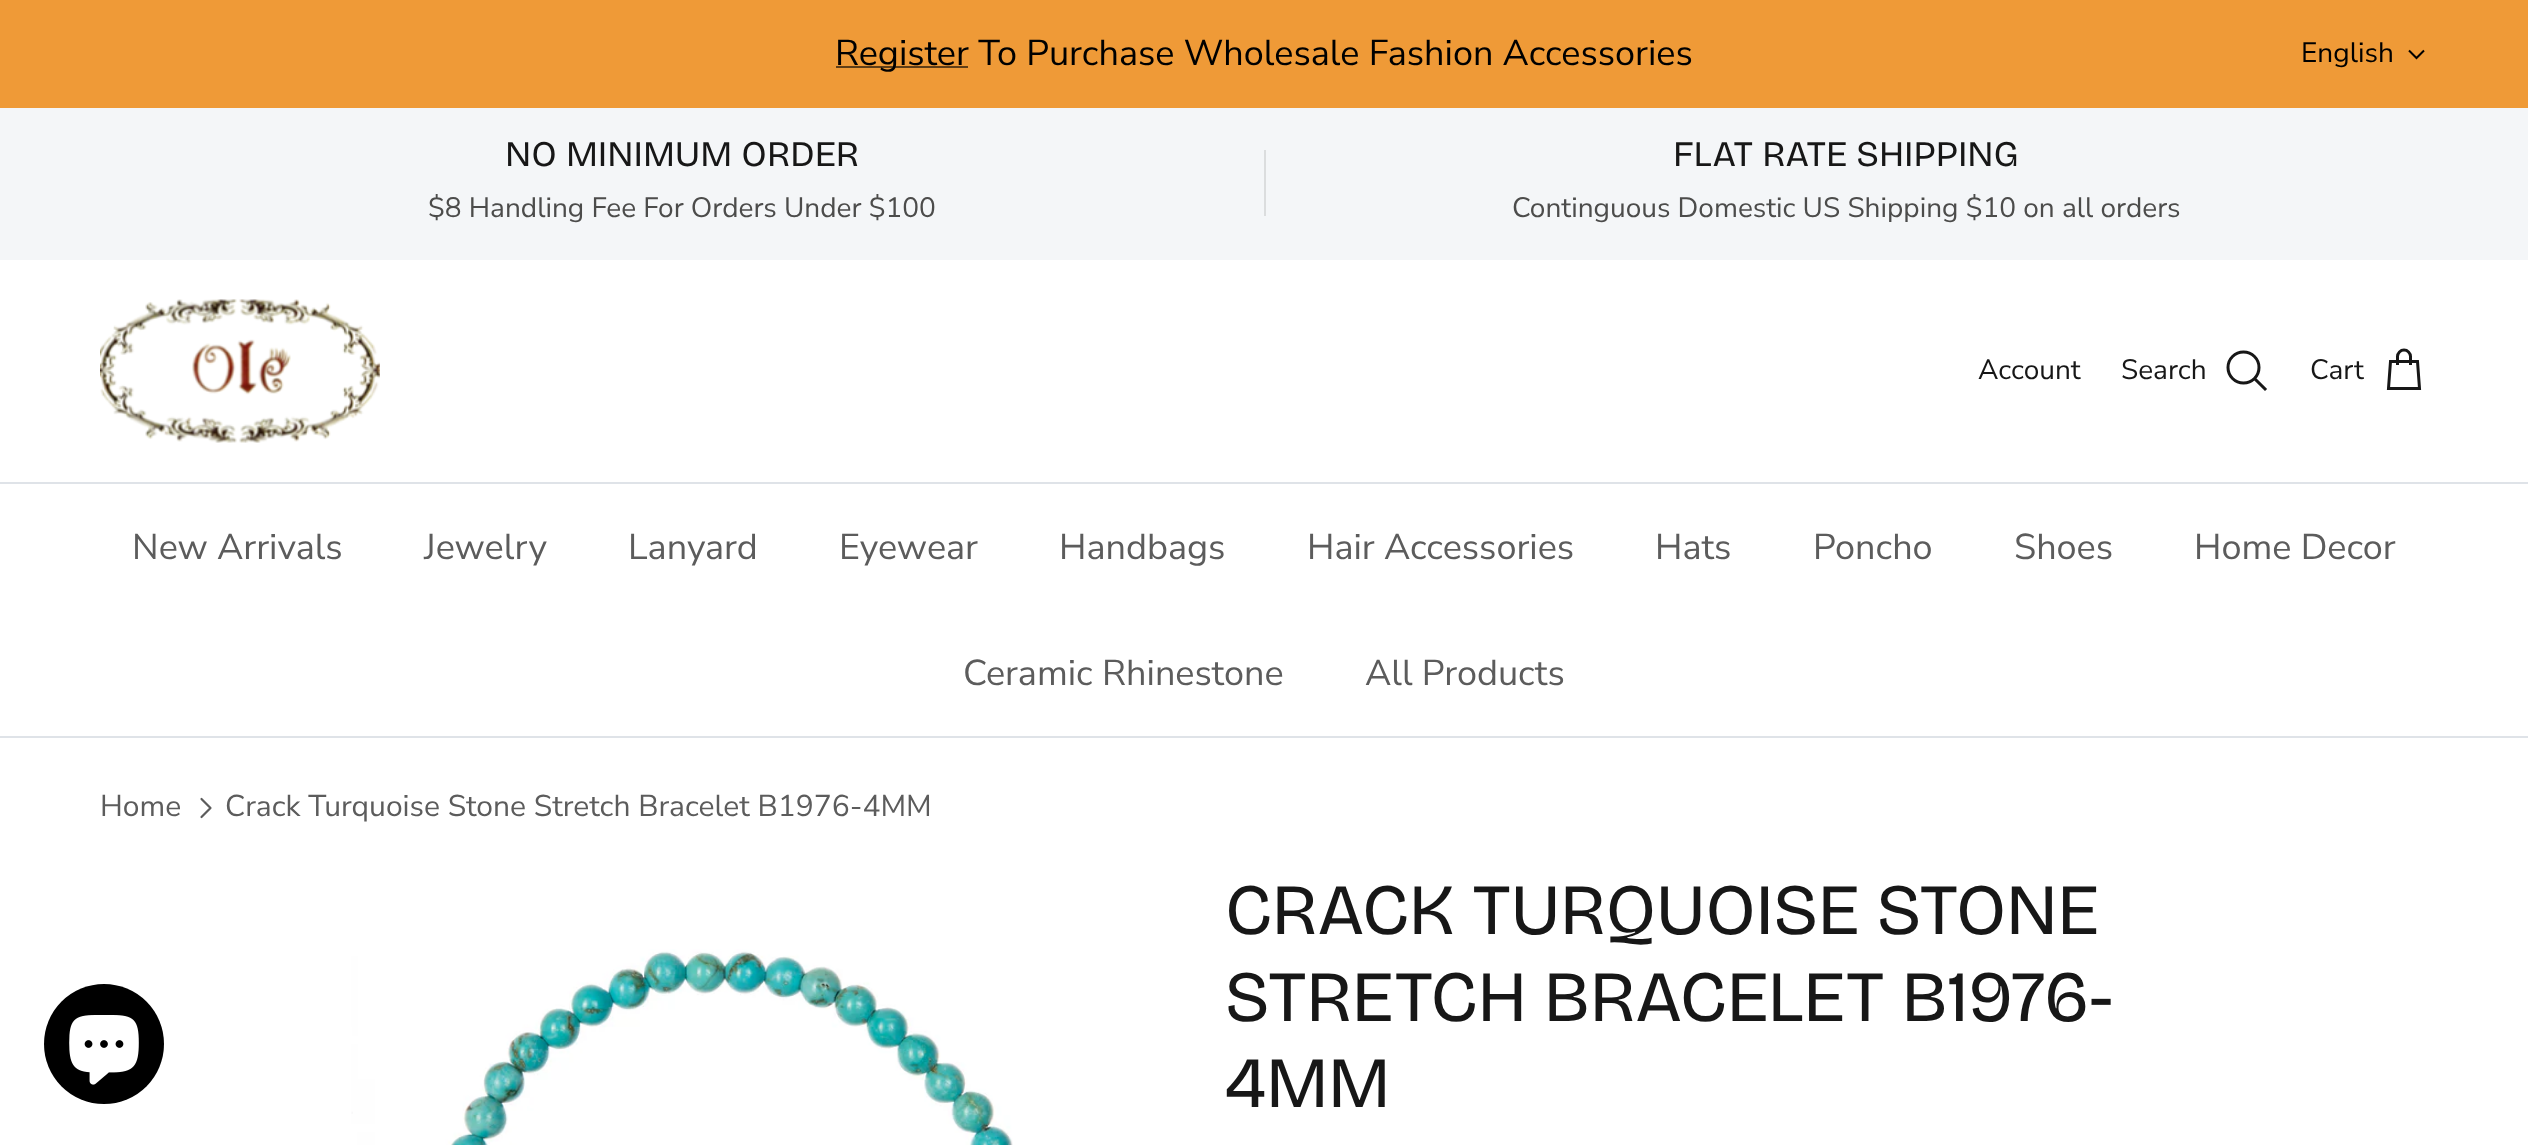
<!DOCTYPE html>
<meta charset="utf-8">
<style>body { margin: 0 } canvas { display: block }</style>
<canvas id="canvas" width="2528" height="1145"></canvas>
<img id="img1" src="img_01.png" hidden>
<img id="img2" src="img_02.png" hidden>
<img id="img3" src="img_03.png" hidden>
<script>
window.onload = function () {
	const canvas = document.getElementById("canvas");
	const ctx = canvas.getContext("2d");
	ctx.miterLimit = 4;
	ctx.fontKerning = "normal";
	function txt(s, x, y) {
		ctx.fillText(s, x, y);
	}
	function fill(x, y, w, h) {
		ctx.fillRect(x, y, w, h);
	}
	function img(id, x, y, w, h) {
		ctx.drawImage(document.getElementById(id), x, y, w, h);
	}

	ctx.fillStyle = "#FFFFFF";
	fill(0, 0, 2528, 1145);
	ctx.fillStyle = "#EF9A37";
	fill(0, 0, 2528, 108);
	ctx.fillStyle = "#603E16";
	fill(836, 66, 132, 2);
	ctx.beginPath();
	ctx.moveTo(2424, 50.5);
	ctx.lineTo(2416.5, 58);
	ctx.lineTo(2409, 50.5);
	ctx.strokeStyle = "#000000";
	ctx.lineWidth = 2;
	ctx.stroke();
	ctx.fillStyle = "#F4F6F8";
	fill(0, 108, 2528, 152);
	ctx.fillStyle = "#DBDDDE";
	fill(1264, 150, 2, 66);
	ctx.fillStyle = "#DFE3E8";
	fill(0, 482, 2528, 2);
	img("img1", 100, 299, 280, 144);
	ctx.beginPath();
	ctx.arc(2243.5, 367.5, 15.5, 0, Math.PI * 2);
	ctx.strokeStyle = "#171717";
	ctx.lineWidth = 3;
	ctx.stroke();
	ctx.beginPath();
	ctx.moveTo(2256, 380);
	ctx.lineTo(2265, 389);
	ctx.lineCap = "square";
	ctx.stroke();
	ctx.beginPath();
	ctx.moveTo(2410.5, 365);
	ctx.lineTo(2410.5, 356.5);
	ctx.bezierCurveTo(2410.5, 353, 2407.5, 350, 2404, 350);
	ctx.bezierCurveTo(2400.5, 350, 2397.5, 353, 2397.5, 356.5);
	ctx.lineTo(2397.5, 365);
	ctx.moveTo(2390.5, 361.5);
	ctx.lineTo(2417.5, 361.5);
	ctx.lineTo(2419.5, 388.5);
	ctx.lineTo(2388.5, 388.5);
	ctx.closePath();
	ctx.lineCap = "butt";
	ctx.stroke();
	fill(0, 736, 2528, 2);
	ctx.beginPath();
	ctx.moveTo(201.5, 817);
	ctx.lineTo(210.5, 808);
	ctx.lineTo(201.5, 799);
	ctx.strokeStyle = "#5C5C5C";
	ctx.lineWidth = 2.2;
	ctx.lineCap = "round";
	ctx.lineJoin = "round";
	ctx.stroke();
	img("img2", 351, 949, 662, 196);
	ctx.fillStyle = "#000000";
	ctx.beginPath();
	ctx.arc(104, 1044, 60, 0, Math.PI * 2);
	ctx.fill();
	img("img3", 69, 1015, 70, 70);
	ctx.font = "36px Nunito Sans";
	txt("Register To Purchase Wholesale Fashion Accessories", 835, 65);
	ctx.font = "28px Nunito Sans";
	txt("English", 2301, 62);
	ctx.font = "36px Bricolage Grotesque";
	ctx.fillStyle = "#171717";
	txt("NO MINIMUM ORDER", 505, 166);
	ctx.font = "28px Nunito Sans";
	ctx.fillStyle = "#4C4C4B";
	txt("$8 Handling Fee For Orders Under $100", 428, 217);
	ctx.font = "36px Bricolage Grotesque";
	ctx.fillStyle = "#171717";
	txt("FLAT RATE SHIPPING", 1673, 166);
	ctx.font = "28px Nunito Sans";
	ctx.fillStyle = "#4C4C4B";
	txt("Continguous Domestic US Shipping $10 on all orders", 1512, 217);
	ctx.fillStyle = "#171717";
	txt("Account", 1978, 379);
	txt("Search", 2121, 379);
	txt("Cart", 2310, 379);
	ctx.font = "36px Nunito Sans";
	ctx.fillStyle = "#5C5C5C";
	txt("New Arrivals", 132, 559);
	txt("Jewelry", 424, 559);
	txt("Lanyard", 628, 559);
	txt("Eyewear", 839, 559);
	txt("Handbags", 1059, 559);
	txt("Hair Accessories", 1307, 559);
	txt("Hats", 1655, 559);
	txt("Poncho", 1813, 559);
	txt("Shoes", 2014, 559);
	txt("Home Decor", 2194, 559);
	txt("Ceramic Rhinestone", 963, 685);
	txt("All Products", 1365, 685);
	ctx.font = "30px Nunito Sans";
	txt("Home", 100, 816);
	txt("Crack Turquoise Stone Stretch Bracelet B1976-4MM", 225, 816);
	ctx.font = "72px 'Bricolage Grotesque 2'";
	ctx.fillStyle = "#171717";
	txt("CRACK TURQUOISE STONE", 1225, 934);
	txt("STRETCH BRACELET B1976-", 1225, 1021);
	txt("4MM", 1225, 1107);
};
</script>
